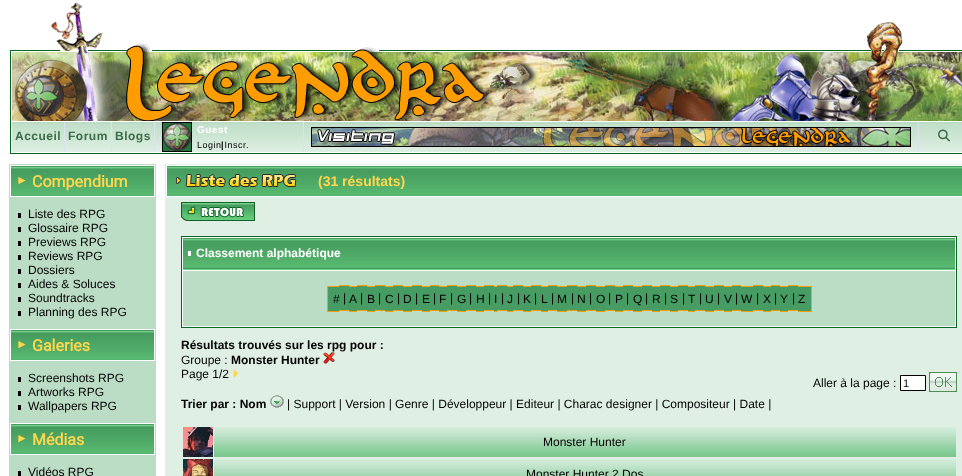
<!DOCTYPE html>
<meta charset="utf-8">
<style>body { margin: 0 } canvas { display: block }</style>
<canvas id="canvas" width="962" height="476"></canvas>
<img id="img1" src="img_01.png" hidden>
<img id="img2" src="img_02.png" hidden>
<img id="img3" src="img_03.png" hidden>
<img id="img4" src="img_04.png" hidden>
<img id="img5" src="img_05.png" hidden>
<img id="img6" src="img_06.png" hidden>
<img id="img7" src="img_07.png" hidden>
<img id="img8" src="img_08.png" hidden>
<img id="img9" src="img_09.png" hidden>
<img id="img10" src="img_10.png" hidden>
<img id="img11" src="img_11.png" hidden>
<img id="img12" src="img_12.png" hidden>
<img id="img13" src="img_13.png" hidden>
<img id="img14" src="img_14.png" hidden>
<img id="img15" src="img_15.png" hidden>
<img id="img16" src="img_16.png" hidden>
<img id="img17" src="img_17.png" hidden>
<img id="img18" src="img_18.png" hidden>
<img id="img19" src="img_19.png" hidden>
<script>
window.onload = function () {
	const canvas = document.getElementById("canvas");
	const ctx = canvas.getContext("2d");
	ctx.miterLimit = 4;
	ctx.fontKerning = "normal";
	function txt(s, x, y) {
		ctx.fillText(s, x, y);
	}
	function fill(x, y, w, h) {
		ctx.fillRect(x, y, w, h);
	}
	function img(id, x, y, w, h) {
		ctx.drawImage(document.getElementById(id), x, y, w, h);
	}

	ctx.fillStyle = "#FFFFFF";
	fill(0, 0, 962, 476);
	ctx.strokeStyle = "#076623";
	ctx.strokeRect(10.5, 50.5, 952, 103);
	img("img1", 51, 2, 852, 50);
	img("img2", 12, 52, 950, 69);
	ctx.fillStyle = "#BCDDC5";
	fill(12, 122, 950, 2);
	img("img3", 12, 124, 950, 28);
	ctx.fillStyle = "#DCE3EE";
	fill(64, 122, 1, 30);
	fill(111, 122, 1, 30);
	fill(154, 122, 1, 30);
	ctx.strokeStyle = "#000000";
	ctx.strokeRect(162.5, 122.5, 29, 29);
	img("img4", 163, 123, 28, 28);
	fill(918, 122, 1, 30);
	fill(303, 122, 1, 30);
	img("img5", 311, 127, 600, 20);
	img("img6", 938, 129, 12, 13);
	ctx.fillStyle = "#BCDDC5";
	fill(9, 164, 147, 312);
	img("img7", 11, 166, 143, 30);
	ctx.strokeStyle = "#FFFFFF";
	ctx.strokeRect(10.5, 165.5, 144, 31);
	ctx.fillStyle = "#000000";
	fill(18, 213, 3, 5);
	fill(18, 227, 3, 5);
	fill(18, 241, 3, 5);
	fill(18, 255, 3, 5);
	fill(18, 269, 3, 5);
	fill(18, 283, 3, 5);
	fill(18, 297, 3, 5);
	fill(18, 311, 3, 5);
	img("img7", 11, 330, 143, 30);
	ctx.strokeRect(10.5, 329.5, 144, 31);
	fill(18, 377, 3, 5);
	fill(18, 391, 3, 5);
	fill(18, 405, 3, 5);
	img("img7", 11, 424, 143, 30);
	ctx.strokeRect(10.5, 423.5, 144, 31);
	fill(18, 471, 3, 5);
	ctx.fillStyle = "#DFEFE4";
	fill(165, 164, 797, 312);
	img("img8", 167, 166, 795, 30);
	ctx.strokeRect(166.5, 165.5, 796, 31);
	img("img9", 176, 174, 121, 13);
	img("img10", 181, 202, 74, 19);
	ctx.strokeStyle = "#076623";
	ctx.strokeRect(181.5, 236.5, 775, 91);
	img("img11", 183, 238, 772, 32);
	ctx.strokeStyle = "#FFFFFF";
	ctx.strokeRect(182.5, 237.5, 773, 33);
	ctx.fillStyle = "#FFFFFF";
	fill(188, 251, 3, 5);
	fill(182, 271, 774, 56);
	ctx.fillStyle = "#BCDDC5";
	fill(183, 271, 772, 55);
	ctx.fillStyle = "#479C63";
	fill(328, 287, 11, 24);
	ctx.fillStyle = "#FF9D00";
	fill(327, 286, 12, 1);
	fill(327, 311, 12, 1);
	fill(327, 286, 1, 26);
	ctx.fillStyle = "#479C63";
	fill(339, 286, 10, 24);
	ctx.fillStyle = "#FF9D00";
	fill(339, 285, 10, 1);
	fill(339, 310, 10, 1);
	ctx.fillStyle = "#479C63";
	fill(349, 286, 8, 26);
	ctx.fillStyle = "#FF9D00";
	fill(349, 286, 8, 1);
	fill(349, 311, 8, 1);
	ctx.fillStyle = "#479C63";
	fill(357, 286, 10, 24);
	ctx.fillStyle = "#FF9D00";
	fill(357, 285, 10, 1);
	fill(357, 310, 10, 1);
	ctx.fillStyle = "#479C63";
	fill(367, 286, 8, 26);
	ctx.fillStyle = "#FF9D00";
	fill(367, 286, 8, 1);
	fill(367, 311, 8, 1);
	ctx.fillStyle = "#479C63";
	fill(375, 286, 10, 24);
	ctx.fillStyle = "#FF9D00";
	fill(375, 285, 10, 1);
	fill(375, 310, 10, 1);
	ctx.fillStyle = "#479C63";
	fill(385, 286, 8, 26);
	ctx.fillStyle = "#FF9D00";
	fill(385, 286, 8, 1);
	fill(385, 311, 8, 1);
	ctx.fillStyle = "#479C63";
	fill(393, 286, 10, 24);
	ctx.fillStyle = "#FF9D00";
	fill(393, 285, 10, 1);
	fill(393, 310, 10, 1);
	ctx.fillStyle = "#479C63";
	fill(403, 287, 9, 24);
	ctx.fillStyle = "#FF9D00";
	fill(403, 286, 9, 1);
	fill(403, 311, 9, 1);
	ctx.fillStyle = "#479C63";
	fill(412, 286, 10, 24);
	ctx.fillStyle = "#FF9D00";
	fill(412, 285, 10, 1);
	fill(412, 310, 10, 1);
	ctx.fillStyle = "#479C63";
	fill(422, 286, 8, 26);
	ctx.fillStyle = "#FF9D00";
	fill(422, 286, 8, 1);
	fill(422, 311, 8, 1);
	ctx.fillStyle = "#479C63";
	fill(430, 286, 9, 24);
	ctx.fillStyle = "#FF9D00";
	fill(430, 285, 9, 1);
	fill(430, 310, 9, 1);
	ctx.fillStyle = "#479C63";
	fill(439, 286, 8, 26);
	ctx.fillStyle = "#FF9D00";
	fill(439, 286, 8, 1);
	fill(439, 311, 8, 1);
	ctx.fillStyle = "#479C63";
	fill(447, 286, 10, 24);
	ctx.fillStyle = "#FF9D00";
	fill(447, 285, 10, 1);
	fill(447, 310, 10, 1);
	ctx.fillStyle = "#479C63";
	fill(457, 287, 9, 24);
	ctx.fillStyle = "#FF9D00";
	fill(457, 286, 9, 1);
	fill(457, 311, 9, 1);
	fill(466, 310, 10, 1);
	ctx.fillStyle = "#479C63";
	fill(466, 286, 10, 24);
	ctx.fillStyle = "#FF9D00";
	fill(466, 285, 10, 1);
	ctx.fillStyle = "#479C63";
	fill(476, 286, 8, 26);
	ctx.fillStyle = "#FF9D00";
	fill(476, 286, 8, 1);
	fill(476, 311, 8, 1);
	ctx.fillStyle = "#479C63";
	fill(484, 286, 10, 24);
	ctx.fillStyle = "#FF9D00";
	fill(484, 285, 10, 1);
	fill(484, 310, 10, 1);
	ctx.fillStyle = "#479C63";
	fill(494, 286, 3, 26);
	ctx.fillStyle = "#FF9D00";
	fill(494, 286, 3, 1);
	fill(494, 311, 3, 1);
	ctx.fillStyle = "#479C63";
	fill(497, 286, 10, 24);
	ctx.fillStyle = "#FF9D00";
	fill(497, 285, 10, 1);
	fill(497, 310, 10, 1);
	ctx.fillStyle = "#479C63";
	fill(507, 286, 6, 26);
	ctx.fillStyle = "#FF9D00";
	fill(507, 286, 6, 1);
	fill(507, 311, 6, 1);
	ctx.fillStyle = "#479C63";
	fill(513, 286, 10, 24);
	ctx.fillStyle = "#FF9D00";
	fill(513, 285, 10, 1);
	fill(513, 310, 10, 1);
	ctx.fillStyle = "#479C63";
	fill(523, 286, 8, 26);
	ctx.fillStyle = "#FF9D00";
	fill(523, 286, 8, 1);
	fill(523, 311, 8, 1);
	ctx.fillStyle = "#479C63";
	fill(531, 286, 10, 24);
	ctx.fillStyle = "#FF9D00";
	fill(531, 285, 10, 1);
	fill(531, 310, 10, 1);
	ctx.fillStyle = "#479C63";
	fill(541, 286, 7, 26);
	ctx.fillStyle = "#FF9D00";
	fill(541, 286, 7, 1);
	fill(541, 311, 7, 1);
	ctx.fillStyle = "#479C63";
	fill(548, 286, 9, 24);
	ctx.fillStyle = "#FF9D00";
	fill(548, 285, 9, 1);
	fill(548, 310, 9, 1);
	ctx.fillStyle = "#479C63";
	fill(557, 287, 10, 24);
	ctx.fillStyle = "#FF9D00";
	fill(557, 286, 10, 1);
	fill(557, 311, 10, 1);
	ctx.fillStyle = "#479C63";
	fill(567, 286, 10, 24);
	ctx.fillStyle = "#FF9D00";
	fill(567, 285, 10, 1);
	fill(567, 310, 10, 1);
	ctx.fillStyle = "#479C63";
	fill(577, 287, 9, 24);
	ctx.fillStyle = "#FF9D00";
	fill(577, 286, 9, 1);
	fill(577, 311, 9, 1);
	ctx.fillStyle = "#479C63";
	fill(586, 286, 10, 24);
	ctx.fillStyle = "#FF9D00";
	fill(586, 285, 10, 1);
	fill(586, 310, 10, 1);
	ctx.fillStyle = "#479C63";
	fill(596, 287, 9, 24);
	ctx.fillStyle = "#FF9D00";
	fill(596, 286, 9, 1);
	fill(596, 311, 9, 1);
	fill(605, 310, 10, 1);
	ctx.fillStyle = "#479C63";
	fill(605, 286, 10, 24);
	ctx.fillStyle = "#FF9D00";
	fill(605, 285, 10, 1);
	ctx.fillStyle = "#479C63";
	fill(615, 286, 8, 26);
	ctx.fillStyle = "#FF9D00";
	fill(615, 286, 8, 1);
	fill(615, 311, 8, 1);
	ctx.fillStyle = "#479C63";
	fill(623, 286, 10, 24);
	ctx.fillStyle = "#FF9D00";
	fill(623, 285, 10, 1);
	fill(623, 310, 10, 1);
	ctx.fillStyle = "#479C63";
	fill(633, 287, 9, 24);
	ctx.fillStyle = "#FF9D00";
	fill(633, 286, 9, 1);
	fill(633, 311, 9, 1);
	fill(642, 310, 10, 1);
	ctx.fillStyle = "#479C63";
	fill(642, 286, 10, 24);
	ctx.fillStyle = "#FF9D00";
	fill(642, 285, 10, 1);
	ctx.fillStyle = "#479C63";
	fill(652, 286, 8, 26);
	ctx.fillStyle = "#FF9D00";
	fill(652, 286, 8, 1);
	fill(652, 311, 8, 1);
	ctx.fillStyle = "#479C63";
	fill(660, 286, 10, 24);
	ctx.fillStyle = "#FF9D00";
	fill(660, 285, 10, 1);
	fill(660, 310, 10, 1);
	ctx.fillStyle = "#479C63";
	fill(670, 286, 8, 26);
	ctx.fillStyle = "#FF9D00";
	fill(670, 286, 8, 1);
	fill(670, 311, 8, 1);
	fill(678, 310, 10, 1);
	ctx.fillStyle = "#479C63";
	fill(678, 286, 10, 24);
	ctx.fillStyle = "#FF9D00";
	fill(678, 285, 10, 1);
	ctx.fillStyle = "#479C63";
	fill(688, 286, 7, 26);
	ctx.fillStyle = "#FF9D00";
	fill(688, 286, 7, 1);
	fill(688, 311, 7, 1);
	ctx.fillStyle = "#479C63";
	fill(695, 286, 10, 24);
	ctx.fillStyle = "#FF9D00";
	fill(695, 285, 10, 1);
	fill(695, 310, 10, 1);
	ctx.fillStyle = "#479C63";
	fill(705, 287, 9, 24);
	ctx.fillStyle = "#FF9D00";
	fill(705, 286, 9, 1);
	fill(705, 311, 9, 1);
	fill(714, 310, 10, 1);
	ctx.fillStyle = "#479C63";
	fill(714, 286, 10, 24);
	ctx.fillStyle = "#FF9D00";
	fill(714, 285, 10, 1);
	ctx.fillStyle = "#479C63";
	fill(724, 286, 8, 26);
	ctx.fillStyle = "#FF9D00";
	fill(724, 286, 8, 1);
	fill(724, 311, 8, 1);
	ctx.fillStyle = "#479C63";
	fill(732, 286, 9, 24);
	ctx.fillStyle = "#FF9D00";
	fill(732, 285, 9, 1);
	fill(732, 310, 9, 1);
	ctx.fillStyle = "#479C63";
	fill(741, 287, 12, 24);
	ctx.fillStyle = "#FF9D00";
	fill(741, 286, 12, 1);
	fill(741, 311, 12, 1);
	ctx.fillStyle = "#479C63";
	fill(753, 286, 10, 24);
	ctx.fillStyle = "#FF9D00";
	fill(753, 285, 10, 1);
	fill(753, 310, 10, 1);
	ctx.fillStyle = "#479C63";
	fill(763, 286, 8, 26);
	ctx.fillStyle = "#FF9D00";
	fill(763, 286, 8, 1);
	fill(763, 311, 8, 1);
	ctx.fillStyle = "#479C63";
	fill(771, 286, 9, 24);
	ctx.fillStyle = "#FF9D00";
	fill(771, 285, 9, 1);
	fill(771, 310, 9, 1);
	ctx.fillStyle = "#479C63";
	fill(780, 286, 8, 26);
	ctx.fillStyle = "#FF9D00";
	fill(780, 286, 8, 1);
	fill(780, 311, 8, 1);
	ctx.fillStyle = "#479C63";
	fill(788, 286, 10, 24);
	ctx.fillStyle = "#FF9D00";
	fill(788, 285, 10, 1);
	fill(788, 310, 10, 1);
	ctx.fillStyle = "#479C63";
	fill(798, 287, 13, 24);
	ctx.fillStyle = "#FF9D00";
	fill(798, 286, 14, 1);
	fill(811, 286, 1, 26);
	fill(798, 311, 14, 1);
	img("img12", 323, 352, 12, 12);
	img("img13", 233, 369, 5, 9);
	ctx.fillStyle = "#FFFFFF";
	ctx.beginPath();
	ctx.rect(900.5, 375.5, 25, 15);
	ctx.fill();
	ctx.strokeStyle = "#000000";
	ctx.stroke();
	img("img14", 929, 372, 28, 20);
	img("img15", 270, 395, 14, 13);
	img("img16", 183, 427, 30, 30);
	img("img17", 214, 427, 742, 30);
	img("img18", 183, 459, 30, 17);
	img("img19", 214, 459, 742, 17);
	ctx.letterSpacing = "0.5px";
	ctx.font = "bold 12px Liberation Sans";
	ctx.fillStyle = "#3A6C46";
	txt("Accueil", 15, 140);
	txt("Forum", 68, 140);
	txt("Blogs", 115, 140);
	ctx.font = "bold 10px Liberation Sans";
	ctx.fillStyle = "#FFFFFF";
	txt("Guest", 197, 133);
	ctx.font = "9px Liberation Sans";
	ctx.fillStyle = "#000000";
	txt("Login Inscr.", 197, 148);
	ctx.font = "bold 9px Liberation Sans";
	txt("|", 221, 148);
	ctx.letterSpacing = "0px";
	ctx.font = "bold 12px Liberation Sans";
	ctx.fillStyle = "#FFD74D";
	txt("►", 16, 184);
	ctx.font = "bold 16px Roboto";
	txt("Compendium", 32, 187);
	ctx.font = "12px Liberation Sans";
	ctx.fillStyle = "#000000";
	txt("Liste des RPG", 28, 218);
	txt("Glossaire RPG", 28, 232);
	txt("Previews RPG", 28, 246);
	txt("Reviews RPG", 28, 260);
	txt("Dossiers", 28, 274);
	txt("Aides & Soluces", 28, 288);
	txt("Soundtracks", 28, 302);
	txt("Planning des RPG", 28, 316);
	ctx.font = "bold 12px Liberation Sans";
	ctx.fillStyle = "#FFD74D";
	txt("►", 16, 348);
	ctx.font = "bold 16px Roboto";
	txt("Galeries", 32, 351);
	ctx.font = "12px Liberation Sans";
	ctx.fillStyle = "#000000";
	txt("Screenshots RPG", 28, 382);
	txt("Artworks RPG", 28, 396);
	txt("Wallpapers RPG", 28, 410);
	ctx.font = "bold 12px Liberation Sans";
	ctx.fillStyle = "#FFD74D";
	txt("►", 16, 442);
	ctx.font = "bold 16px Roboto";
	txt("Médias", 32, 445);
	ctx.font = "12px Liberation Sans";
	ctx.fillStyle = "#000000";
	txt("Vidéos RPG", 28, 476);
	ctx.font = "bold 14px Liberation Sans";
	ctx.fillStyle = "#FFD74D";
	txt("(31 résultats)", 318, 186);
	ctx.font = "bold 12px Liberation Sans";
	ctx.fillStyle = "#FFFFFF";
	txt("Classement alphabétique", 196, 257);
	ctx.font = "12px Liberation Sans";
	ctx.fillStyle = "#000000";
	txt("#", 333, 303);
	txt("|", 343, 302);
	txt("A", 349, 303);
	txt("|", 360, 302);
	txt("B", 367, 303);
	txt("|", 378, 302);
	txt("C", 385, 303);
	txt("|", 397, 302);
	txt("D", 403, 303);
	txt("|", 415, 302);
	txt("E", 422, 303);
	txt("|", 433, 302);
	txt("F", 439, 303);
	txt("|", 450, 302);
	txt("G", 457, 303);
	txt("|", 469, 302);
	txt("H", 476, 303);
	txt("|", 488, 302);
	txt("I", 494, 303);
	txt("|", 501, 302);
	txt("J", 507, 303);
	txt("|", 517, 302);
	txt("K", 523, 303);
	txt("|", 534, 302);
	txt("L", 541, 303);
	txt("|", 551, 302);
	txt("M", 557, 303);
	txt("|", 571, 302);
	txt("N", 577, 303);
	txt("|", 589, 302);
	txt("O", 596, 303);
	txt("|", 608, 302);
	txt("P", 615, 303);
	txt("|", 626, 302);
	txt("Q", 633, 303);
	txt("|", 645, 302);
	txt("R", 652, 303);
	txt("|", 664, 302);
	txt("S", 670, 303);
	txt("|", 682, 302);
	txt("T", 688, 303);
	txt("|", 699, 302);
	txt("U", 705, 303);
	txt("|", 717, 302);
	txt("V", 724, 303);
	txt("|", 735, 302);
	txt("W", 741, 303);
	txt("|", 756, 302);
	txt("X", 763, 303);
	txt("|", 774, 302);
	txt("Y", 780, 303);
	txt("|", 792, 302);
	txt("Z", 798, 303);
	ctx.font = "bold 12px Liberation Sans";
	txt("Résultats trouvés sur les rpg pour :", 181, 349);
	ctx.font = "12px Liberation Sans";
	txt("Groupe :", 181, 364);
	ctx.font = "bold 12px Liberation Sans";
	txt("Monster Hunter", 231, 364);
	ctx.font = "12px Liberation Sans";
	txt("Page 1/2", 181, 378);
	txt("Aller à la page :", 813, 387);
	ctx.font = "11px Liberation Sans";
	txt("1", 903, 387);
	ctx.font = "bold 12px Liberation Sans";
	txt("Trier par : Nom", 181, 408);
	ctx.font = "12px Liberation Sans";
	txt("| Support | Version | Genre | Développeur | Editeur | Charac designer | Compositeur | Date |", 287, 408);
	txt("Monster Hunter", 543, 446);
	txt("Monster Hunter 2 Dos", 526, 478);
};
</script>
